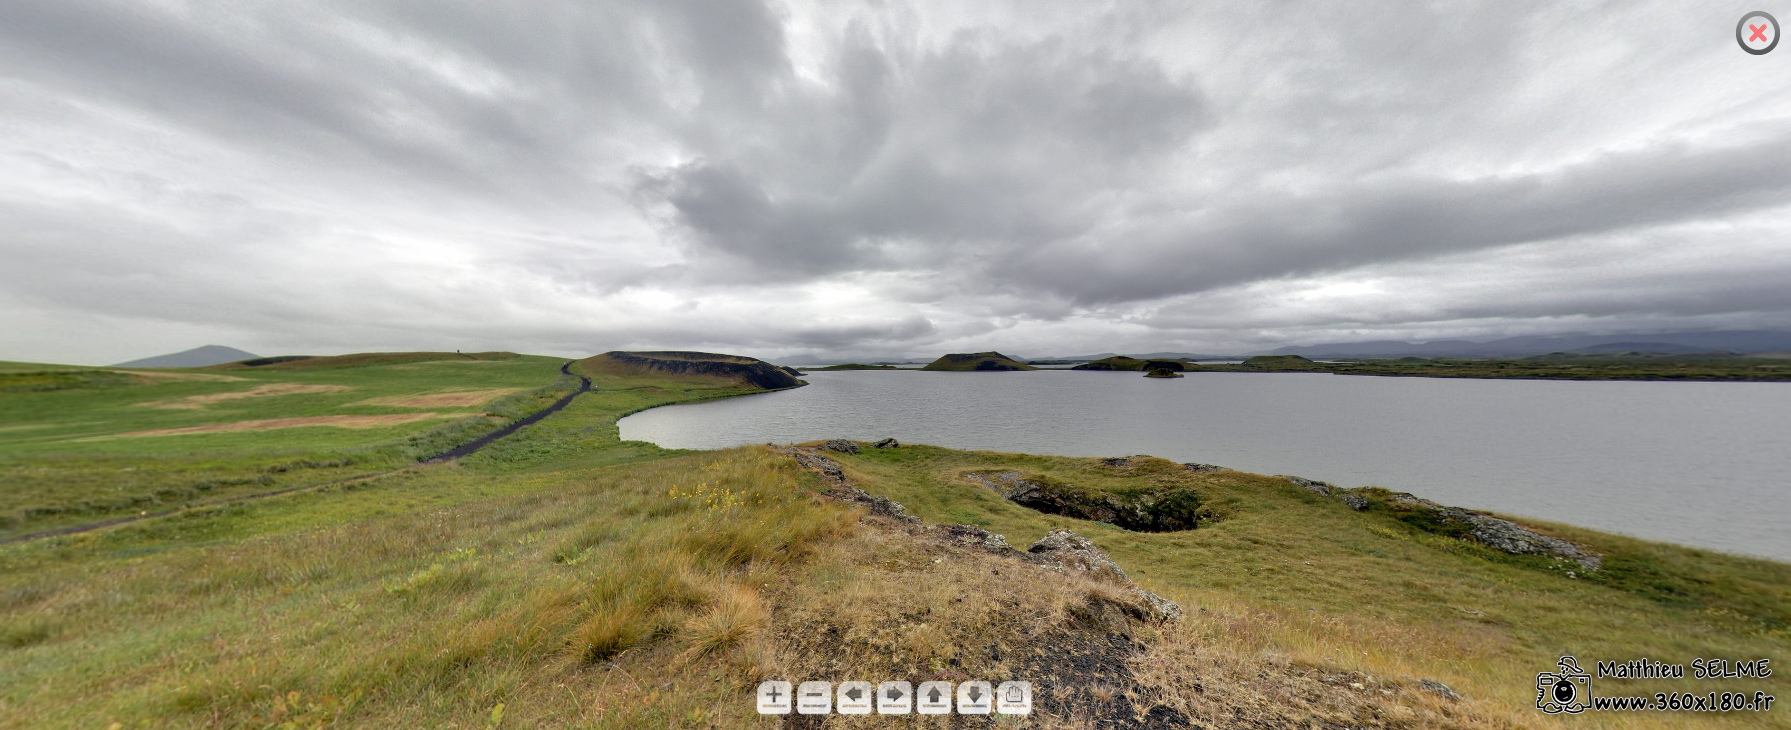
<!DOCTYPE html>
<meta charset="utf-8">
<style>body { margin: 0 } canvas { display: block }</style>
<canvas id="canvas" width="1791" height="730"></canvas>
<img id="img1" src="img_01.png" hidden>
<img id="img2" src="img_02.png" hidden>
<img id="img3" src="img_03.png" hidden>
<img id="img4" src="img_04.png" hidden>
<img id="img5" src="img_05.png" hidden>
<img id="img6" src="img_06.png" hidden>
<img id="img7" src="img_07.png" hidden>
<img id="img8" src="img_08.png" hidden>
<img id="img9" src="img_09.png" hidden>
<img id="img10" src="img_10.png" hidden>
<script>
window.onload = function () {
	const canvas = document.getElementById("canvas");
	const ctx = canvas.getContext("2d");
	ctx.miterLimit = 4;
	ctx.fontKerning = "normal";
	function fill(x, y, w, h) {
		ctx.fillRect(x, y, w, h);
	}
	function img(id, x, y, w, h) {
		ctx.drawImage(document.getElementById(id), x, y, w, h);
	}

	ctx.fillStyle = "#FFFFFF";
	fill(0, 0, 1791, 730);
	img("img1", 0, 0, 1791, 730);
	img("img2", 1736, 11, 44, 44);
	img("img3", 757, 680, 38, 37);
	img("img4", 797, 680, 38, 37);
	img("img5", 837, 680, 38, 37);
	img("img6", 877, 680, 38, 37);
	img("img7", 917, 680, 38, 37);
	img("img8", 957, 680, 38, 37);
	img("img9", 997, 680, 38, 37);
	img("img10", 1531, 650, 250, 70);
};
</script>
